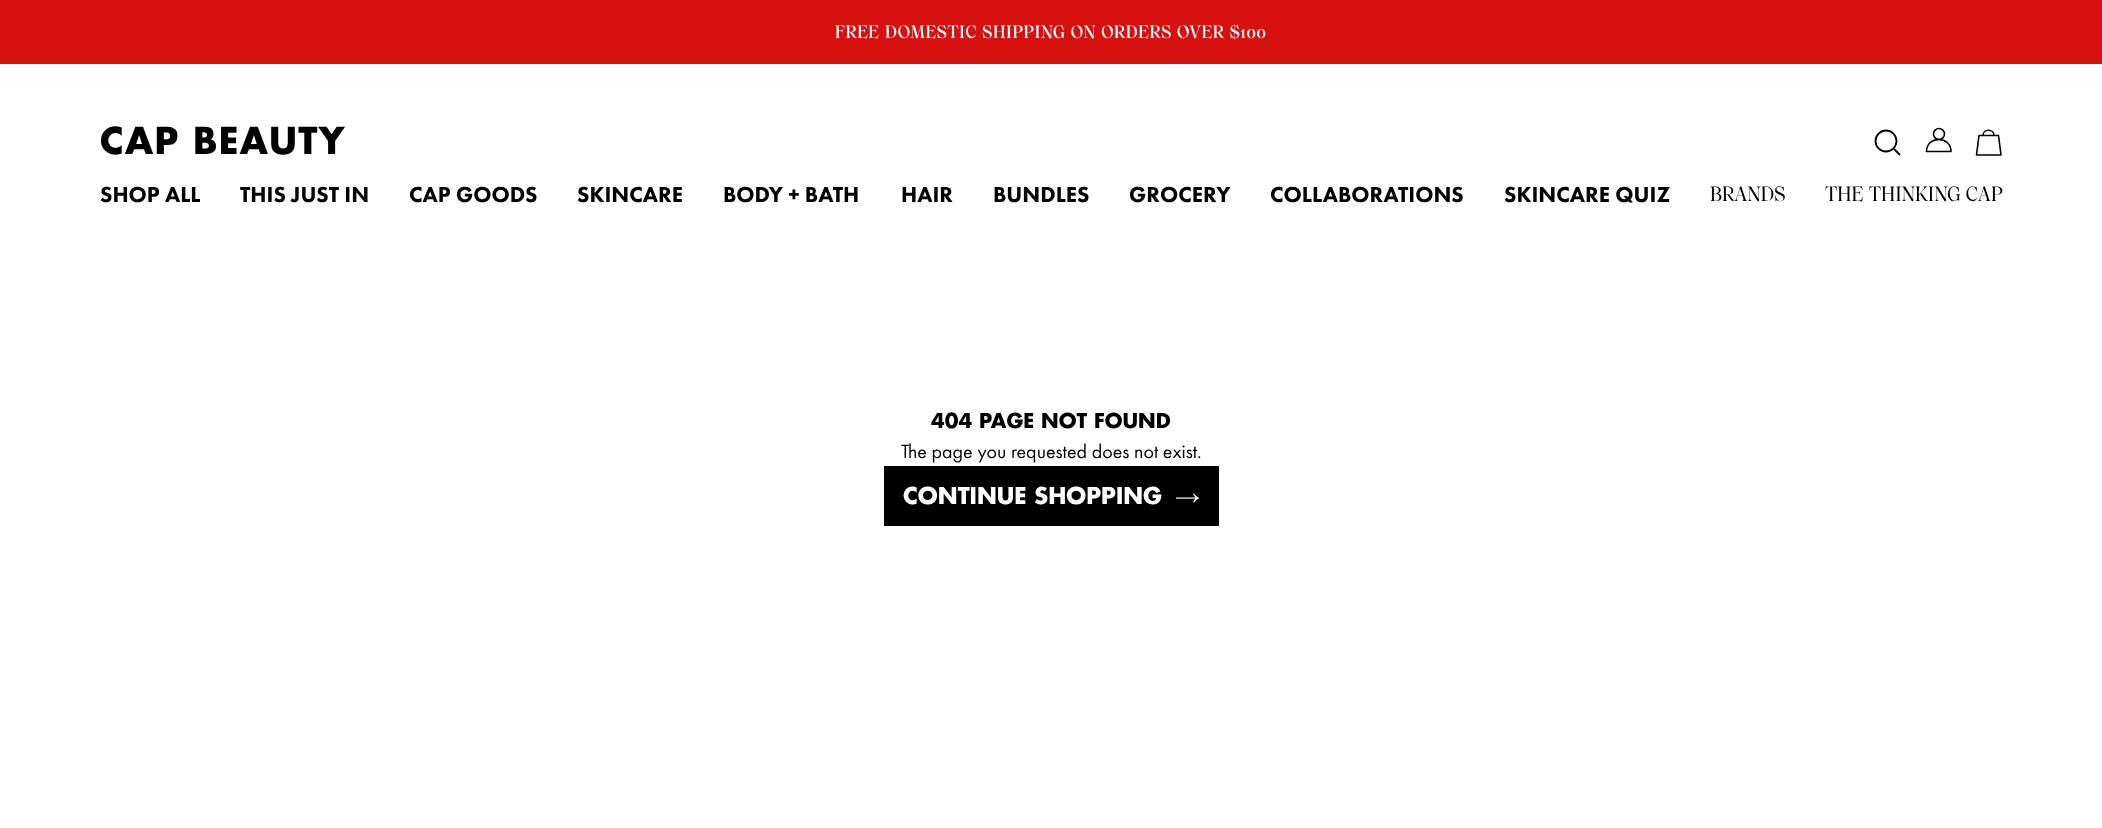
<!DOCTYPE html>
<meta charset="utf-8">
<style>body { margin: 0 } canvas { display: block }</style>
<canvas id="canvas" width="2102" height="828"></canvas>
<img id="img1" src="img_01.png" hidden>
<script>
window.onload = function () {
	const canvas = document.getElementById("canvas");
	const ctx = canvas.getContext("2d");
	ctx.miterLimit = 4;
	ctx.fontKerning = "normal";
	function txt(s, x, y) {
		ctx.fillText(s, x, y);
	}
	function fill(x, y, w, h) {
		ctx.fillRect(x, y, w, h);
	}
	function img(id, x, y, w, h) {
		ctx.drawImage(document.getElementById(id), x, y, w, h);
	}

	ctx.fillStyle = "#FFFFFF";
	fill(0, 0, 2102, 828);
	ctx.fillStyle = "#D71010";
	fill(0, 0, 2102, 64);
	ctx.beginPath();
	ctx.arc(1886, 141, 10.5, 0, Math.PI * 2);
	ctx.strokeStyle = "#000000";
	ctx.lineWidth = 1.8;
	ctx.stroke();
	ctx.beginPath();
	ctx.moveTo(1899.5, 154.5);
	ctx.lineTo(1894.5, 149.5);
	ctx.lineCap = "round";
	ctx.stroke();
	ctx.beginPath();
	ctx.arc(1939, 134, 5.5, 0, Math.PI * 2);
	ctx.lineWidth = 1.6;
	ctx.stroke();
	ctx.beginPath();
	ctx.moveTo(1951, 151.5);
	ctx.bezierCurveTo(1951, 135.5, 1926.5, 135.5, 1926.5, 151.5);
	ctx.closePath();
	ctx.lineJoin = "round";
	ctx.stroke();
	ctx.beginPath();
	ctx.moveTo(1979, 135.5);
	ctx.lineTo(1998.5, 135.5);
	ctx.lineTo(2001, 155);
	ctx.lineTo(1976.5, 155);
	ctx.closePath();
	ctx.moveTo(1994, 135.5);
	ctx.bezierCurveTo(1994, 128.5, 1983, 128.5, 1983, 135.5);
	ctx.stroke();
	ctx.fillStyle = "#000000";
	fill(884, 466, 335, 60);
	img("img1", 1175, 493, 24, 10);
	ctx.letterSpacing = "0.6px";
	ctx.font = "600 17.5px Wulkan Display";
	ctx.fillStyle = "#FFFFFF";
	txt("FREE DOMESTIC SHIPPING ON ORDERS OVER $100", 835, 38);
	ctx.letterSpacing = "1.25px";
	ctx.font = "bold 36px Futura";
	ctx.fillStyle = "#000000";
	txt("CAP BEAUTY", 100, 154);
	ctx.letterSpacing = "0px";
	ctx.font = "900 22.5px Futura PT";
	txt("SHOP ALL", 100, 202);
	txt("THIS JUST IN", 240, 202);
	txt("CAP GOODS", 409, 202);
	txt("SKINCARE", 577, 202);
	txt("BODY + BATH", 723, 202);
	txt("HAIR", 901, 202);
	txt("BUNDLES", 993, 202);
	txt("GROCERY", 1129, 202);
	txt("COLLABORATIONS", 1270, 202);
	txt("SKINCARE QUIZ", 1504, 202);
	ctx.font = "500 20px Wulkan Display";
	txt("BRANDS", 1710, 201);
	txt("THE THINKING CAP", 1825, 201);
	ctx.font = "bold 20px Futura";
	txt("404 PAGE NOT FOUND", 931, 428);
	ctx.font = "20px Futura PT";
	txt("The page you requested does not exist.", 901, 458);
	ctx.font = "bold 22.5px Futura";
	ctx.fillStyle = "#FFFFFF";
	txt("CONTINUE SHOPPING", 903, 504);
};
</script>
